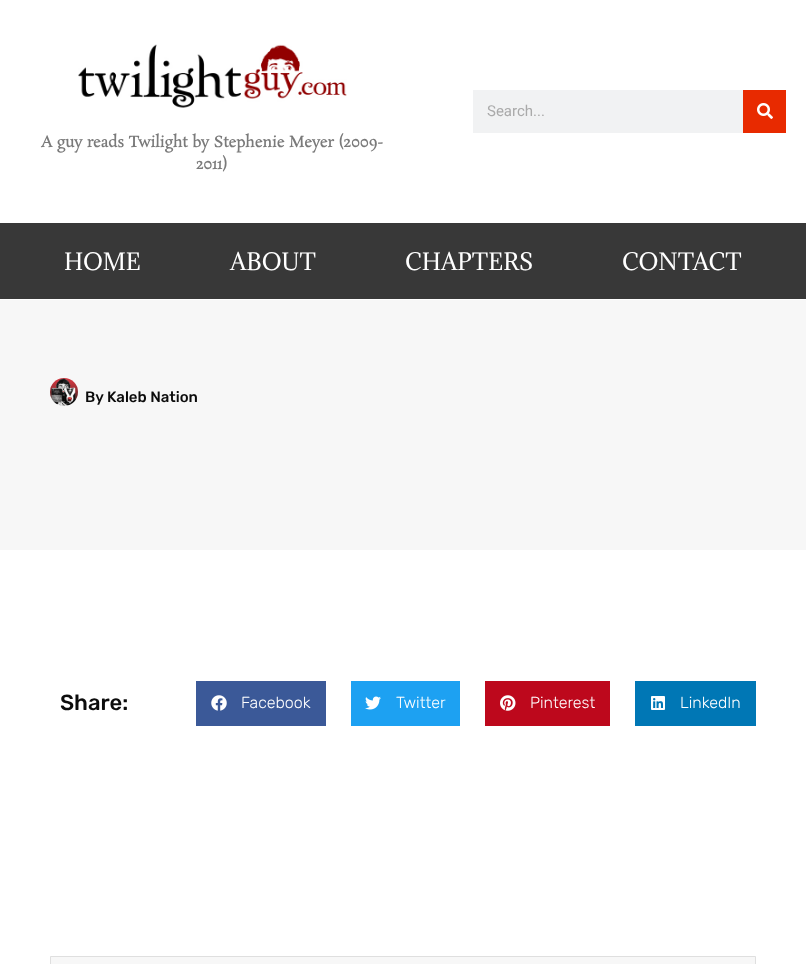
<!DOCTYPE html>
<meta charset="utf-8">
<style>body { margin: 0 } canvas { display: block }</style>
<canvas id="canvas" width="806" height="964"></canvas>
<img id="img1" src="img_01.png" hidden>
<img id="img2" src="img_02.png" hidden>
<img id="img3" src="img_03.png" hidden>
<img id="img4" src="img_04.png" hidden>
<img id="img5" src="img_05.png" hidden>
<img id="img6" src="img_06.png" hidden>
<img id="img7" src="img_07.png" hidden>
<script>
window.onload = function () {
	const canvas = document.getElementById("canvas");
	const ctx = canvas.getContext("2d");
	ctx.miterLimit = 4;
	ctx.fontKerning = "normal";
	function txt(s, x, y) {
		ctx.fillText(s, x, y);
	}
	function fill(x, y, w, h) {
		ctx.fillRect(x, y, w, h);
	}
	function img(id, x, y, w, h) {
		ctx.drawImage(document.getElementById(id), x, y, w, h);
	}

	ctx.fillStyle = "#FFFFFF";
	fill(0, 0, 806, 964);
	ctx.fillStyle = "#F1F2F3";
	fill(473, 90, 270, 43);
	ctx.fillStyle = "#E82A00";
	fill(743, 90, 43, 43);
	img("img1", 757, 103, 16, 16);
	img("img2", 78, 44, 269, 64);
	ctx.fillStyle = "#383838";
	fill(0, 223, 806, 76);
	ctx.fillStyle = "#F7F7F7";
	fill(0, 300, 806, 250);
	img("img3", 50, 378, 28, 28);
	ctx.fillStyle = "#3B5998";
	fill(196, 681, 130, 45);
	img("img4", 211, 695, 16, 16);
	ctx.fillStyle = "#1DA1F2";
	fill(351, 681, 109, 45);
	img("img5", 365, 696, 16, 14);
	ctx.fillStyle = "#BD081C";
	fill(485, 681, 125, 45);
	img("img6", 500, 695, 16, 16);
	ctx.fillStyle = "#0077B5";
	fill(635, 681, 121, 45);
	img("img7", 651, 696, 14, 14);
	ctx.fillStyle = "#F7F7F7";
	ctx.beginPath();
	ctx.rect(50.5, 956.5, 705, 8);
	ctx.fill();
	ctx.strokeStyle = "#DFDFDF";
	ctx.stroke();
	ctx.font = "15px Roboto";
	ctx.fillStyle = "#AAAAAA";
	txt("Search...", 487, 116);
	ctx.font = "bold 15px Rosarivo";
	ctx.fillStyle = "#7A7A7A";
	txt("A guy reads Twilight by Stephenie Meyer (2009-", 41, 147);
	txt("2011)", 196, 169);
	ctx.font = "22px Adamina";
	ctx.fillStyle = "#FFFFFF";
	txt("HOME", 64, 270);
	txt("ABOUT", 230, 270);
	txt("CHAPTERS", 405, 270);
	txt("CONTACT", 622, 270);
	ctx.font = "500 15px Rubik";
	ctx.fillStyle = "#0C0C0C";
	txt("By Kaleb Nation", 85, 402);
	ctx.font = "500 22px Rubik";
	txt("Share:", 60, 710);
	ctx.font = "300 16px Rubik";
	ctx.fillStyle = "#FFFFFF";
	txt("Facebook", 241, 708);
	txt("Twitter", 396, 708);
	txt("Pinterest", 530, 708);
	txt("LinkedIn", 680, 708);
};
</script>
